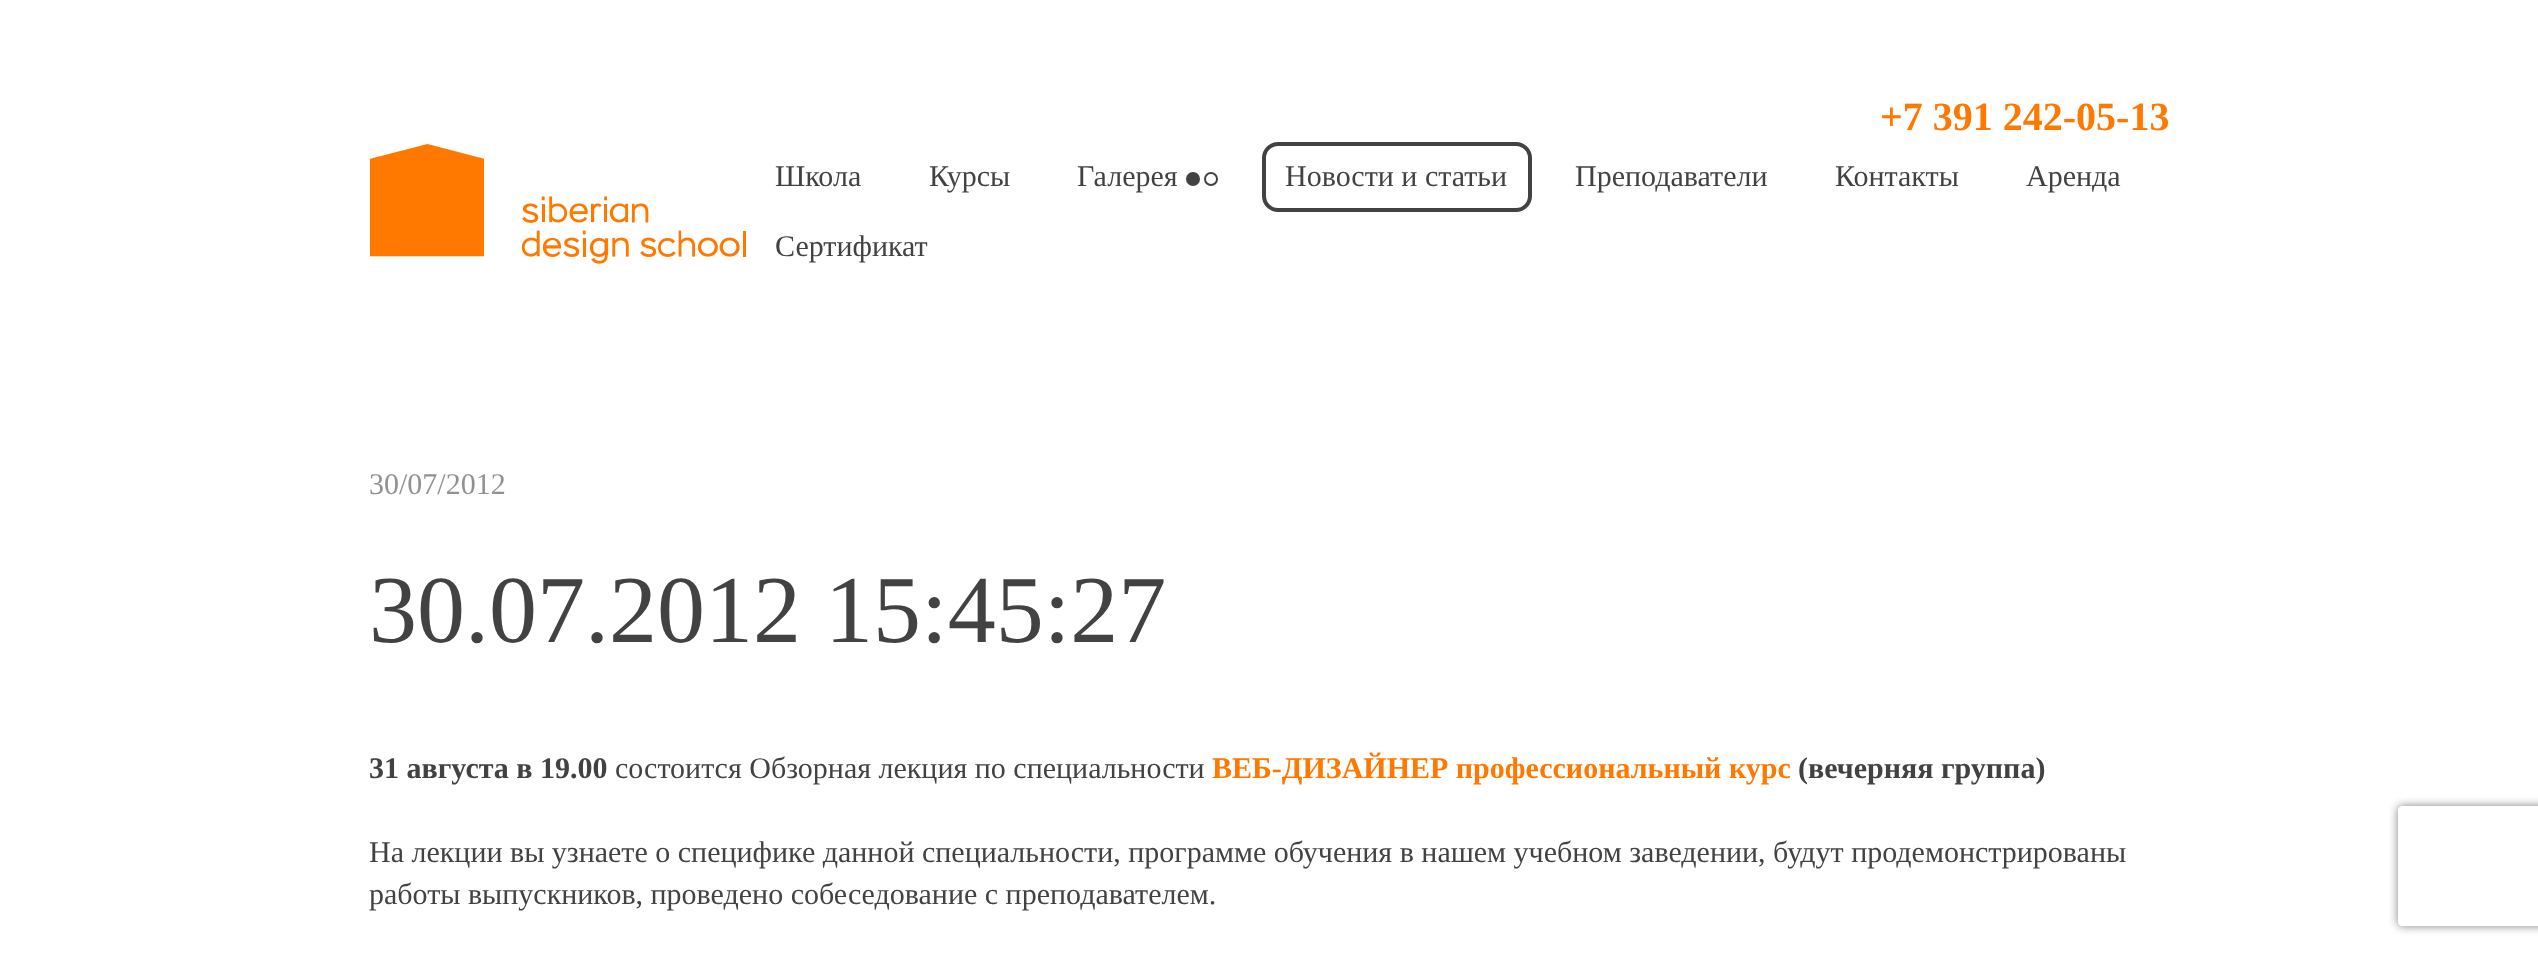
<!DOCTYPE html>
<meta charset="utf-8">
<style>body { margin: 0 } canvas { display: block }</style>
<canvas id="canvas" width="2538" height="954"></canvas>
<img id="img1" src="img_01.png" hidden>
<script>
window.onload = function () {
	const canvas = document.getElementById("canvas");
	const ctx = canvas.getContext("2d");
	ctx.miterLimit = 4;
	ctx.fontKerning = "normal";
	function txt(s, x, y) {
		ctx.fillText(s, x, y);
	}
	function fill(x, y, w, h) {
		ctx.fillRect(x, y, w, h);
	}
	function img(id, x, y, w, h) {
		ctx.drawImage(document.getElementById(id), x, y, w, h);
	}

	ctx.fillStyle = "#FFFFFF";
	fill(0, 0, 2538, 954);
	img("img1", 370, 144, 376, 120);
	ctx.fillStyle = "#424242";
	ctx.beginPath();
	ctx.arc(1193, 179, 7, 0, Math.PI * 2);
	ctx.fill();
	ctx.beginPath();
	ctx.arc(1211, 179, 6, 0, Math.PI * 2);
	ctx.strokeStyle = "#424242";
	ctx.lineWidth = 2;
	ctx.stroke();
	ctx.beginPath();
	ctx.roundRect(1264, 144, 266, 66, 14);
	ctx.lineWidth = 4;
	ctx.stroke();
	ctx.save();
	ctx.beginPath();
	ctx.moveTo(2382, 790);
	ctx.lineTo(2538, 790);
	ctx.lineTo(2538, 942);
	ctx.lineTo(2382, 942);
	ctx.closePath();
	ctx.moveTo(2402, 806);
	ctx.lineTo(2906, 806);
	ctx.bezierCurveTo(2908, 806, 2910, 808, 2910, 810);
	ctx.lineTo(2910, 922);
	ctx.bezierCurveTo(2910, 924, 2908, 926, 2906, 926);
	ctx.lineTo(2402, 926);
	ctx.bezierCurveTo(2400, 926, 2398, 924, 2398, 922);
	ctx.lineTo(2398, 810);
	ctx.bezierCurveTo(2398, 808, 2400, 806, 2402, 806);
	ctx.closePath();
	ctx.clip("evenodd");
	ctx.fillStyle = "#808080";
	ctx.filter = "blur(5px)";
	ctx.beginPath();
	ctx.roundRect(2398, 806, 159, 120, 4);
	ctx.fill();
	ctx.filter = "none";
	ctx.restore();
	ctx.font = "bold 40px Liberation Serif";
	ctx.fillStyle = "#FF7800";
	txt("+7 391 242-05-13", 1880, 130);
	ctx.font = "30px Liberation Serif";
	ctx.fillStyle = "#424242";
	txt("Школа", 775, 186);
	txt("Курсы", 929, 186);
	txt("Галерея", 1077, 186);
	txt("Новости и статьи", 1285, 186);
	txt("Преподаватели", 1575, 186);
	txt("Контакты", 1835, 186);
	txt("Аренда", 2026, 186);
	txt("Сертификат", 775, 256);
	ctx.fillStyle = "#919191";
	txt("30/07/2012", 369, 494);
	ctx.font = "96px Liberation Serif";
	ctx.fillStyle = "#424242";
	txt("30.07.2012 15:45:27", 369, 642);
	ctx.font = "bold 30px Liberation Serif";
	txt("31 августа в 19.00", 369, 778);
	ctx.font = "30px Liberation Serif";
	txt("состоится Обзорная лекция по специальности", 615, 778);
	ctx.font = "bold 30px Liberation Serif";
	ctx.fillStyle = "#FF7800";
	txt("ВЕБ-ДИЗАЙНЕР профессиональный курс", 1212, 778);
	ctx.fillStyle = "#424242";
	txt("(вечерняя группа)", 1798, 778);
	ctx.font = "30px Liberation Serif";
	txt("На лекции вы узнаете о специфике данной специальности, программе обучения в нашем учебном заведении, будут продемонстрированы", 369, 862);
	txt("работы выпускников, проведено собеседование с преподавателем.", 369, 904);
};
</script>
